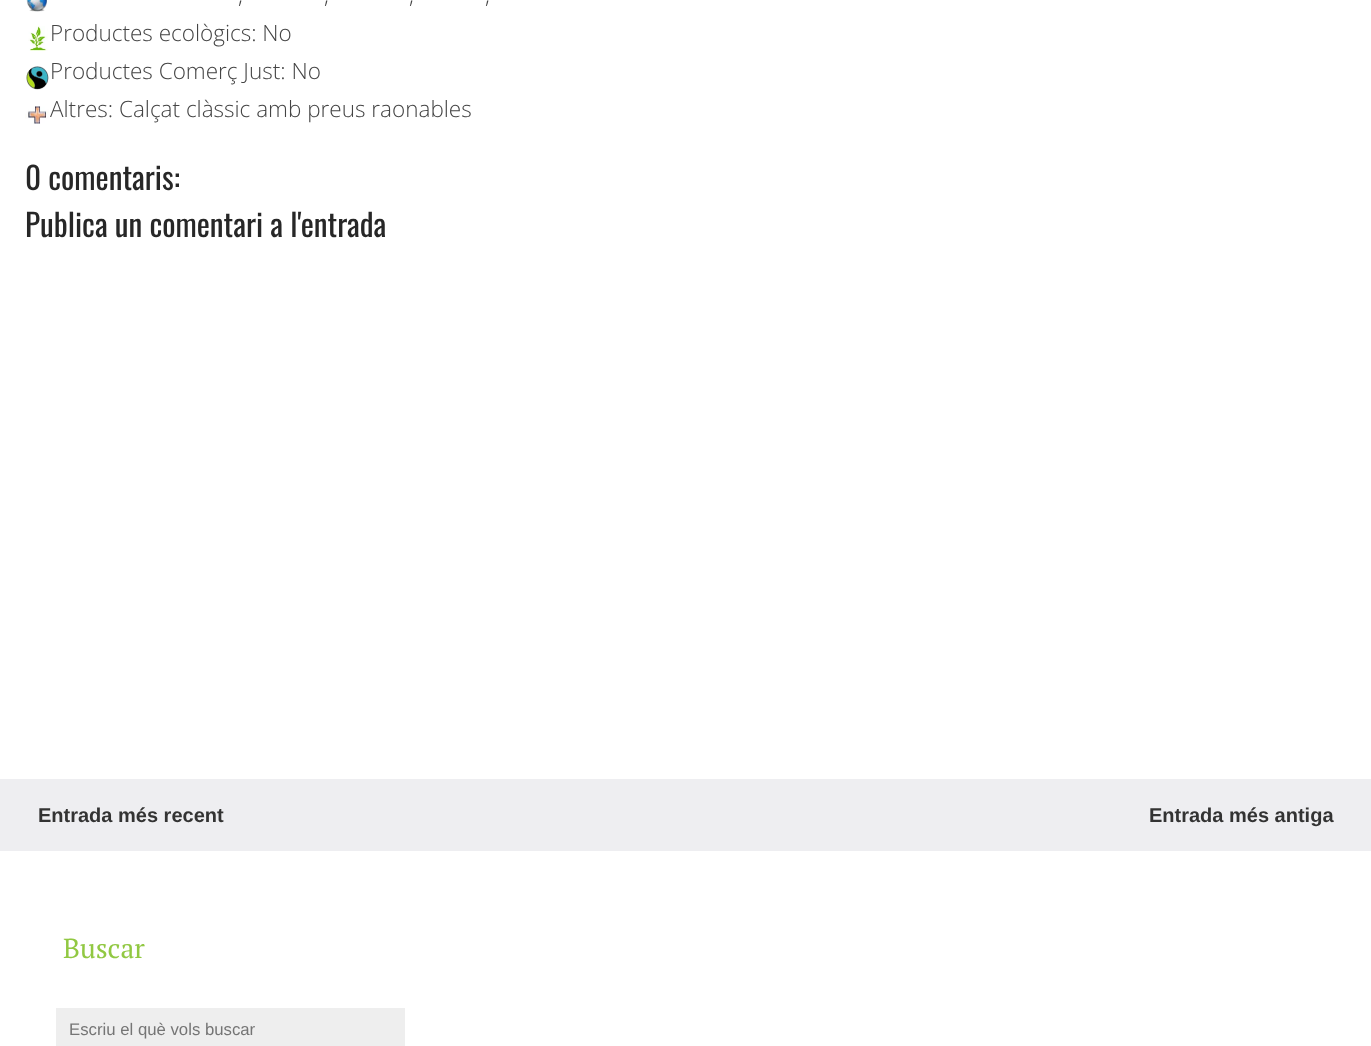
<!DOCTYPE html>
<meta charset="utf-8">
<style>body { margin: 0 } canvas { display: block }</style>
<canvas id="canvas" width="1371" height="1046"></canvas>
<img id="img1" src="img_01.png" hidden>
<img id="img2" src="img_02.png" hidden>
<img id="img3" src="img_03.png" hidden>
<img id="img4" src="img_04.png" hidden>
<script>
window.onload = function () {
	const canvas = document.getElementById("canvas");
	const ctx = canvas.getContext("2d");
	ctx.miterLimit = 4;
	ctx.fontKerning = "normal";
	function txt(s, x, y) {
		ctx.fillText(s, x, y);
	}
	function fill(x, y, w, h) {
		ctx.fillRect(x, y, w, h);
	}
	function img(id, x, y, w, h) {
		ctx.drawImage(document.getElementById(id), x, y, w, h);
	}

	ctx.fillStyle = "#FFFFFF";
	fill(0, 0, 1371, 1046);
	img("img1", 26, 0, 21, 12);
	img("img2", 28, 26, 20, 25);
	img("img3", 26, 66, 23, 24);
	img("img4", 25, 106, 24, 18);
	ctx.fillStyle = "#EEEEF1";
	fill(1346, 779, 25, 72);
	fill(0, 779, 1346, 72);
	ctx.fillStyle = "#EEEEEE";
	fill(56, 1008, 349, 38);
	ctx.font = "300 22.5px Open Sans";
	ctx.fillStyle = "#444444";
	txt(",", 238, 3);
	txt(",", 324, 3);
	txt(",", 409, 3);
	txt(",", 485, 3);
	txt("Productes ecològics: No", 50, 41);
	txt("Productes Comerç Just: No", 50, 79);
	txt("Altres: Calçat clàssic amb preus raonables", 50, 117);
	ctx.font = "31.25px Oswald";
	ctx.fillStyle = "#272727";
	txt("0 comentaris:", 25, 190);
	txt("Publica un comentari a l'entrada", 25, 237);
	ctx.font = "bold 20px Liberation Sans";
	ctx.fillStyle = "#333333";
	txt("Entrada més recent", 38, 822);
	txt("Entrada més antiga", 1149, 822);
	ctx.font = "27.5px PT Serif";
	ctx.fillStyle = "#91C842";
	txt("Buscar", 63, 958);
	ctx.font = "16.75px Liberation Sans";
	ctx.fillStyle = "#757575";
	txt("Escriu el què vols buscar", 69, 1035);
};
</script>
